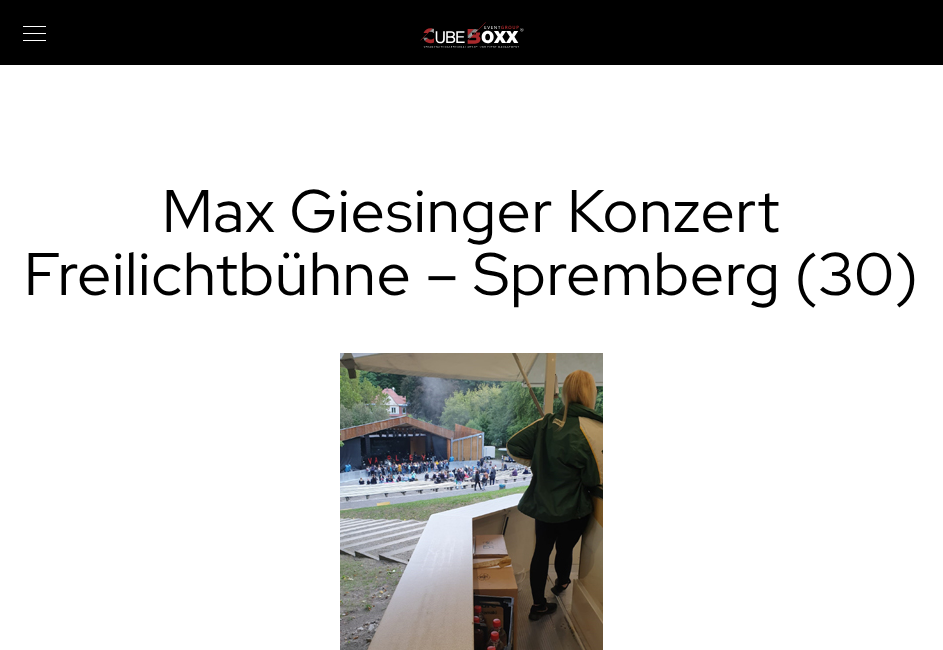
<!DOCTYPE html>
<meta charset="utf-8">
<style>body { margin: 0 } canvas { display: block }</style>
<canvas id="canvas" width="943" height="650"></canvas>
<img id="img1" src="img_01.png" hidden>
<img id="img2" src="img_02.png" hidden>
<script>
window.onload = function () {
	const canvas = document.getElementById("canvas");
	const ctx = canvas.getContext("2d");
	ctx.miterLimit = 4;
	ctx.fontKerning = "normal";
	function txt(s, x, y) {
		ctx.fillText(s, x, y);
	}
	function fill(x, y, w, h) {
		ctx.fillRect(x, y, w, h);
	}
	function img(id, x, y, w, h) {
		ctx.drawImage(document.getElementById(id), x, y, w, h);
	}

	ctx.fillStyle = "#FFFFFF";
	fill(0, 0, 943, 650);
	ctx.fillStyle = "#000000";
	fill(0, 0, 943, 65);
	img("img1", 420, 22, 104, 26);
	ctx.fillStyle = "#FFFFFF";
	fill(23, 33, 23, 1);
	fill(23, 26, 23, 1);
	fill(23, 40, 23, 1);
	img("img2", 340, 353, 263, 297);
	ctx.letterSpacing = "1px";
	ctx.font = "60px Red Hat Display";
	ctx.fillStyle = "#000000";
	txt("Max Giesinger Konzert", 162, 232);
	txt("Freilichtbühne – Spremberg (30)", 24, 295);
};
</script>
